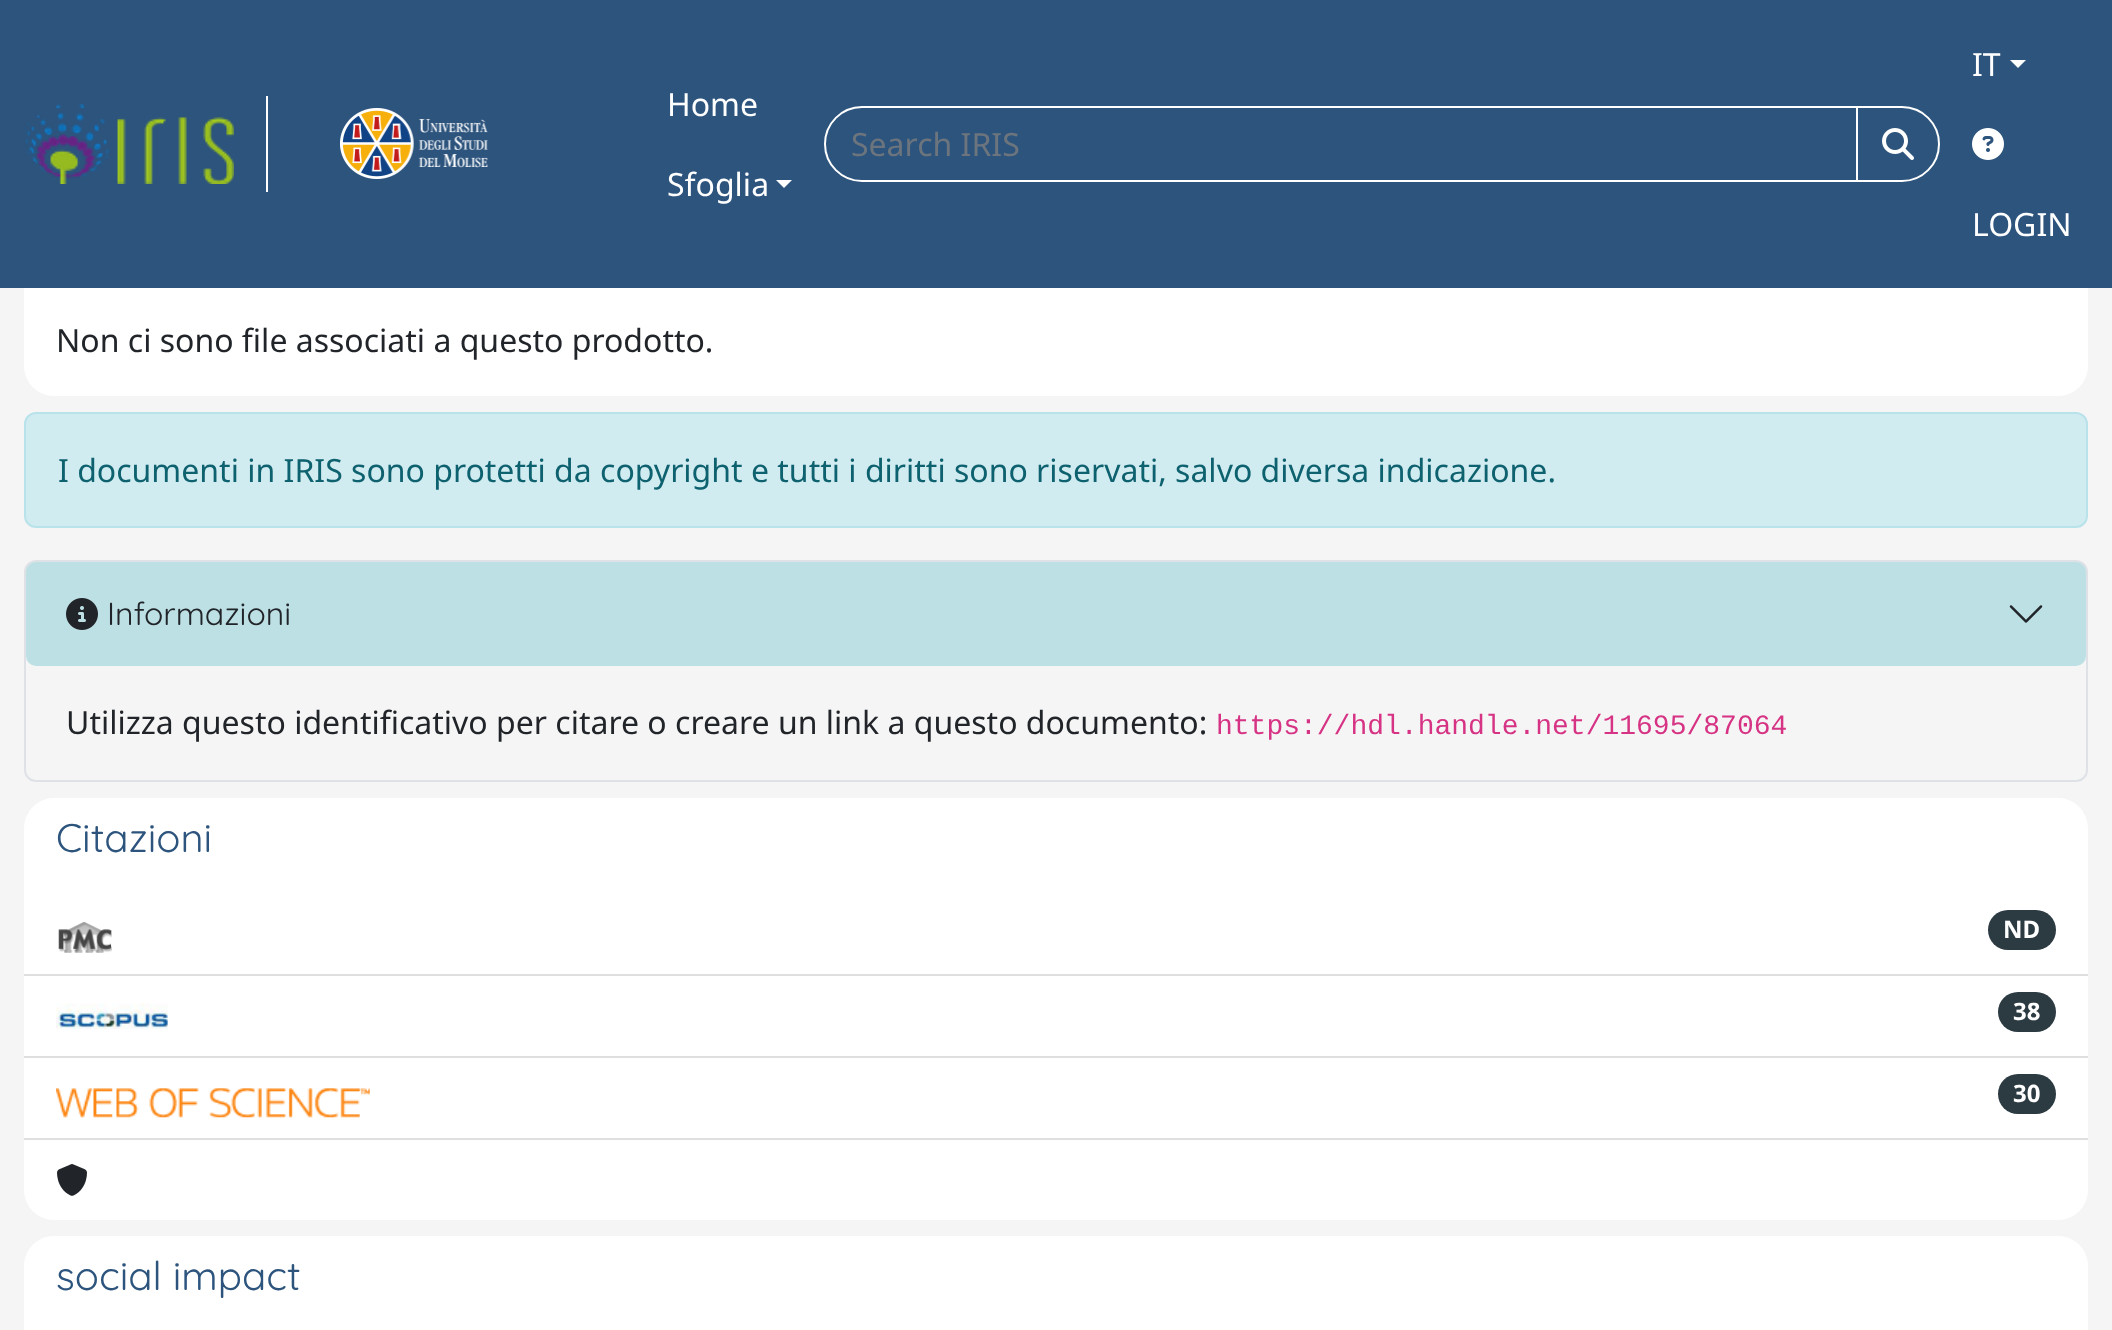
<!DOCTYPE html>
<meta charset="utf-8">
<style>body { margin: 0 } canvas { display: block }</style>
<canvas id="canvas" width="2112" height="1330"></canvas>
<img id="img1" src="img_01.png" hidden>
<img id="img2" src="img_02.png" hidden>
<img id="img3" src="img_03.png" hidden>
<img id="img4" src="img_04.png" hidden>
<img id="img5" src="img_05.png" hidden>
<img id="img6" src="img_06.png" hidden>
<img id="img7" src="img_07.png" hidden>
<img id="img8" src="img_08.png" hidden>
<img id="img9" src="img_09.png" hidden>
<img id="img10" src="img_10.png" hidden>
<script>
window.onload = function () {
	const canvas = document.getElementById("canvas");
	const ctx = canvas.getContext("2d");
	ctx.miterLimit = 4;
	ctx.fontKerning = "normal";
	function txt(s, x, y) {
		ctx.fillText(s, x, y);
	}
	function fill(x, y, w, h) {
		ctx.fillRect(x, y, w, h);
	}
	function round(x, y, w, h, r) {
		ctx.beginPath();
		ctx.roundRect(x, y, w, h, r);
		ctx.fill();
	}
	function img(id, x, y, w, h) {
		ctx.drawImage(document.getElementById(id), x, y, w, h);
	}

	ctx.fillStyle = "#F5F5F5";
	fill(0, 0, 2112, 1330);
	ctx.fillStyle = "#FFFFFF";
	round(24, 204, 2064, 192, 30);
	ctx.fillStyle = "#2D547D";
	fill(0, 0, 2112, 288);
	ctx.fillStyle = "#FFFFFF";
	fill(266, 96, 2, 96);
	img("img1", 24, 104, 210, 80);
	img("img2", 340, 108, 148, 71);
	ctx.beginPath();
	ctx.moveTo(776, 180);
	ctx.lineTo(792, 180);
	ctx.lineTo(784, 188);
	ctx.closePath();
	ctx.fill();
	ctx.beginPath();
	ctx.roundRect(825, 107, 1032, 74, [37, 0, 0, 37]);
	ctx.strokeStyle = "#FFFFFF";
	ctx.lineWidth = 2;
	ctx.stroke();
	ctx.fillStyle = "#2D547D";
	ctx.beginPath();
	ctx.roundRect(1857, 107, 82, 74, [0, 37, 37, 0]);
	ctx.fill();
	ctx.stroke();
	img("img3", 1882, 128, 32, 32);
	ctx.fillStyle = "#FFFFFF";
	ctx.beginPath();
	ctx.moveTo(2010, 60);
	ctx.lineTo(2026, 60);
	ctx.lineTo(2018, 68);
	ctx.closePath();
	ctx.fill();
	img("img4", 1972, 128, 32, 32);
	ctx.fillStyle = "#D1ECF1";
	ctx.beginPath();
	ctx.roundRect(25, 413, 2062, 114, 11);
	ctx.fill();
	ctx.strokeStyle = "#B9E3EA";
	ctx.stroke();
	ctx.beginPath();
	ctx.roundRect(25, 561, 2062, 220, 11);
	ctx.strokeStyle = "#DEE2E6";
	ctx.stroke();
	ctx.fillStyle = "rgba(23, 162, 184, 0.25)";
	round(26, 562, 2060, 104, 10);
	img("img5", 66, 598, 32, 32);
	img("img6", 2009, 605, 34, 18);
	ctx.fillStyle = "#FFFFFF";
	round(24, 798, 2064, 422, 30);
	ctx.fillStyle = "#DFDFDF";
	fill(24, 974, 2064, 2);
	img("img7", 58, 921, 54, 32);
	ctx.fillStyle = "#2C3A42";
	round(1988, 910, 68, 40, 20);
	ctx.fillStyle = "#DFDFDF";
	fill(24, 1056, 2064, 2);
	img("img8", 56, 1003, 112, 27);
	ctx.fillStyle = "#2C3A42";
	round(1998, 992, 58, 40, 20);
	ctx.fillStyle = "#DFDFDF";
	fill(24, 1138, 2064, 2);
	img("img9", 56, 1088, 314, 30);
	ctx.fillStyle = "#2C3A42";
	round(1998, 1074, 58, 40, 20);
	img("img10", 57, 1164, 30, 32);
	ctx.fillStyle = "#FFFFFF";
	ctx.beginPath();
	ctx.moveTo(54, 1236);
	ctx.lineTo(2058, 1236);
	ctx.bezierCurveTo(2074.5, 1236, 2088, 1249.5, 2088, 1266);
	ctx.lineTo(2088, 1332);
	ctx.lineTo(24, 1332);
	ctx.lineTo(24, 1266);
	ctx.bezierCurveTo(24, 1249.5, 37.5, 1236, 54, 1236);
	ctx.closePath();
	ctx.fill();
	ctx.font = "32px Noto Sans";
	txt("Home", 667, 116);
	txt("Sfoglia", 667, 196);
	ctx.fillStyle = "#6C757D";
	txt("Search IRIS", 851, 156);
	ctx.fillStyle = "#FFFFFF";
	txt("IT", 1972, 76);
	txt("LOGIN", 1972, 236);
	ctx.fillStyle = "#212529";
	txt("Non ci sono file associati a questo prodotto.", 56, 352);
	ctx.fillStyle = "#0E616E";
	txt("I documenti in IRIS sono protetti da copyright e tutti i diritti sono riservati, salvo diversa indicazione.", 58, 482);
	ctx.font = "32px Quicksand";
	ctx.fillStyle = "#212529";
	txt("Informazioni", 107, 625);
	ctx.font = "32px Noto Sans";
	txt("Utilizza questo identificativo per citare o creare un link a questo documento:", 66, 734);
	ctx.font = "28px Liberation Mono";
	ctx.fillStyle = "#D63384";
	txt("https://hdl.handle.net/11695/87064", 1216, 734);
	ctx.font = "40px Quicksand";
	ctx.fillStyle = "#2D547D";
	txt("Citazioni", 56, 852);
	ctx.font = "bold 24px Noto Sans";
	ctx.fillStyle = "#FFFFFF";
	txt("ND", 2003, 938);
	txt("38", 2013, 1020);
	txt("30", 2013, 1102);
	ctx.font = "40px Quicksand";
	ctx.fillStyle = "#2D547D";
	txt("social impact", 56, 1290);
};
</script>
